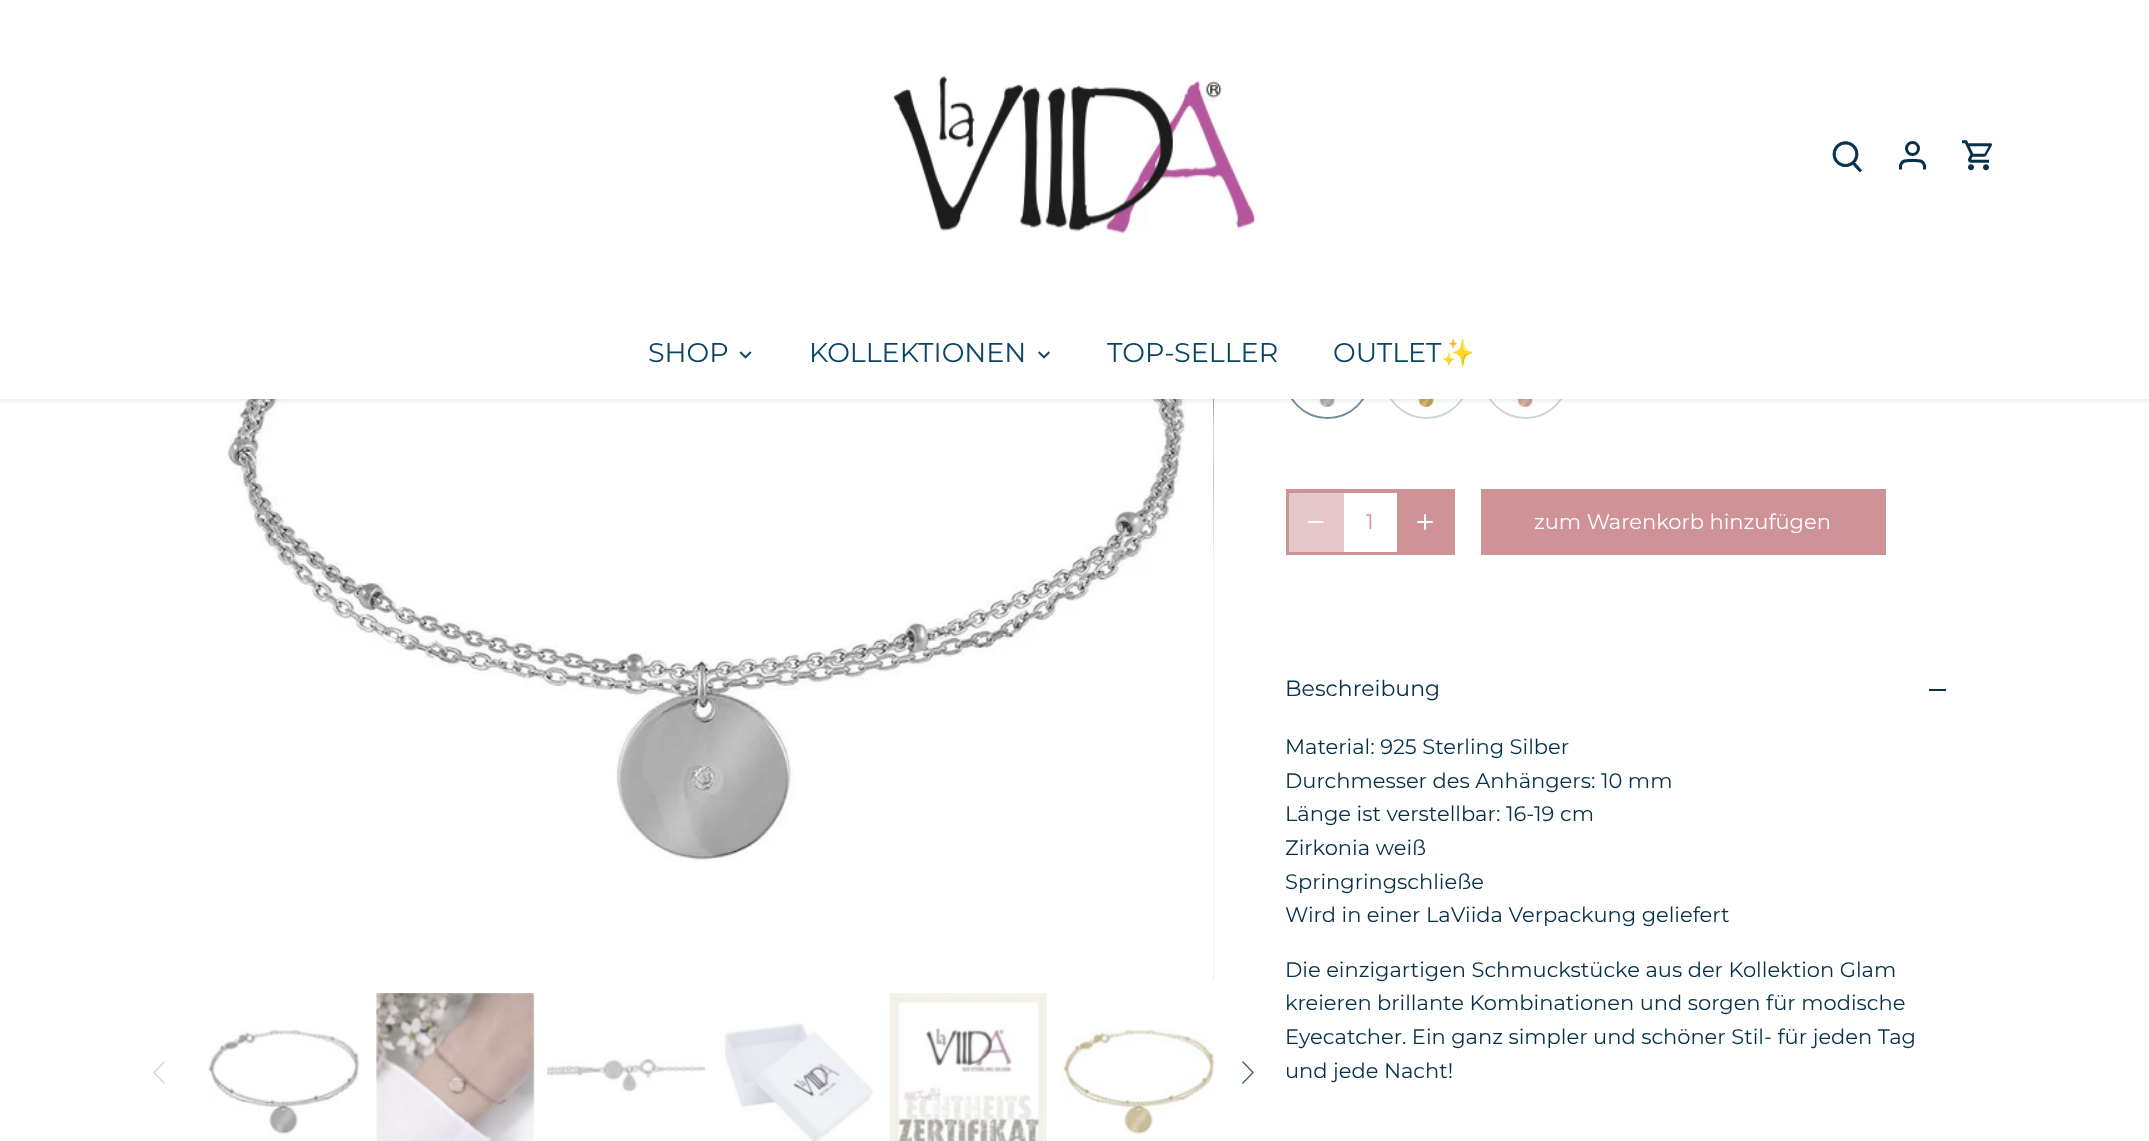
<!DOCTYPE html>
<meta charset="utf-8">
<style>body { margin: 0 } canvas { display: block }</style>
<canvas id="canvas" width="2149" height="1141"></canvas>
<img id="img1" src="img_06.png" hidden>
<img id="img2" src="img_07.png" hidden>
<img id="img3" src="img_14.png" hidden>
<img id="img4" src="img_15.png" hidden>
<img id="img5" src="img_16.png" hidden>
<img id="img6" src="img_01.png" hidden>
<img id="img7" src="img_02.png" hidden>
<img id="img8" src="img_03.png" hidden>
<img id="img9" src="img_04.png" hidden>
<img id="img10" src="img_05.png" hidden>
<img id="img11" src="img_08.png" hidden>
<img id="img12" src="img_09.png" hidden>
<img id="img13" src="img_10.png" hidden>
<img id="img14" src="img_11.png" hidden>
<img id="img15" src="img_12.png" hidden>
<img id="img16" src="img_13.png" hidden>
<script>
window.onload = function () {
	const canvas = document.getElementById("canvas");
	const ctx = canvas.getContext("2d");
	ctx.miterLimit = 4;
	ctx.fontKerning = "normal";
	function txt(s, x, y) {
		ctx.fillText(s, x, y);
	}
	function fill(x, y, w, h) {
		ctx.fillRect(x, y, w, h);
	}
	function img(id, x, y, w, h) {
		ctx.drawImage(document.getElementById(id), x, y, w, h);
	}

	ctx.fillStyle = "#FFFFFF";
	fill(0, 0, 2149, 1141);
	img("img1", 227, 399, 959, 463);
	img("img2", 1213, 399, 1, 582);
	ctx.beginPath();
	ctx.arc(1327.5, 375.5, 42.5, 0, Math.PI * 2);
	ctx.strokeStyle = "#738B98";
	ctx.lineWidth = 2;
	ctx.stroke();
	img("img3", 1293, 399, 69, 18);
	ctx.beginPath();
	ctx.arc(1426.5, 375.5, 42.5, 0, Math.PI * 2);
	ctx.strokeStyle = "#CBD4D9";
	ctx.stroke();
	img("img4", 1392, 399, 69, 18);
	ctx.beginPath();
	ctx.arc(1525.5, 375.5, 42.5, 0, Math.PI * 2);
	ctx.stroke();
	img("img5", 1491, 399, 69, 18);
	ctx.fillStyle = "rgba(0, 0, 0, 0.08)";
	ctx.filter = "blur(2px)";
	ctx.beginPath();
	ctx.rect(-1, -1, 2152, 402);
	ctx.fill();
	ctx.filter = "none";
	ctx.fillStyle = "#FFFFFF";
	fill(0, 0, 2149, 399);
	img("img6", 893, 75, 364, 165);
	img("img7", 1832, 141, 30, 32);
	ctx.beginPath();
	ctx.arc(1912.5, 148.5, 6, 0, Math.PI * 2);
	ctx.strokeStyle = "#063148";
	ctx.lineWidth = 3;
	ctx.stroke();
	ctx.beginPath();
	ctx.moveTo(1924.5, 169.5);
	ctx.lineTo(1924.5, 165.5);
	ctx.bezierCurveTo(1923, 159.5, 1917, 160.5, 1912.5, 160.5);
	ctx.bezierCurveTo(1908, 160.5, 1902, 159.5, 1900.5, 165.5);
	ctx.lineTo(1900.5, 169.5);
	ctx.stroke();
	img("img8", 1962, 140, 30, 31);
	img("img9", 739, 351, 13, 8);
	img("img10", 1038, 351, 12, 8);
	ctx.fillStyle = "#D0D8DD";
	ctx.beginPath();
	ctx.moveTo(165, 1062);
	ctx.lineTo(164, 1061);
	ctx.lineTo(153, 1072.5);
	ctx.lineTo(164, 1084);
	ctx.lineTo(165, 1083);
	ctx.lineTo(155, 1072.5);
	ctx.closePath();
	ctx.fill();
	img("img11", 208, 1029, 152, 107);
	img("img12", 376, 993, 159, 148);
	img("img13", 547, 1058, 159, 34);
	img("img14", 724, 1023, 150, 118);
	img("img15", 889, 993, 158, 148);
	img("img16", 1062, 1029, 152, 106);
	ctx.fillStyle = "#446576";
	ctx.beginPath();
	ctx.moveTo(1243, 1061);
	ctx.lineTo(1242, 1062);
	ctx.lineTo(1252, 1072.5);
	ctx.lineTo(1242, 1083);
	ctx.lineTo(1243, 1084);
	ctx.lineTo(1254, 1072.5);
	ctx.closePath();
	ctx.fill();
	ctx.strokeStyle = "#CF9296";
	ctx.lineWidth = 2;
	ctx.strokeRect(1288, 492, 165, 61);
	ctx.strokeRect(1287, 490, 167, 64);
	ctx.fillStyle = "rgba(207, 146, 150, 0.5)";
	fill(1289, 493, 55, 59);
	ctx.beginPath();
	ctx.moveTo(1308.5, 522);
	ctx.lineTo(1322.5, 522);
	ctx.strokeStyle = "#FFFFFF";
	ctx.lineCap = "round";
	ctx.lineJoin = "round";
	ctx.stroke();
	ctx.fillStyle = "#CF9296";
	fill(1397, 493, 55, 59);
	ctx.beginPath();
	ctx.moveTo(1425, 515);
	ctx.lineTo(1425, 529);
	ctx.moveTo(1418, 522);
	ctx.lineTo(1432, 522);
	ctx.stroke();
	fill(1481, 489, 405, 66);
	ctx.fillStyle = "#063148";
	fill(1929, 689, 17, 2);
	ctx.font = "27px Montserrat";
	ctx.fillStyle = "#0A4565";
	txt("SHOP", 648, 362);
	txt("KOLLEKTIONEN", 809, 362);
	txt("TOP-SELLER", 1107, 362);
	txt("OUTLET", 1333, 362);
	ctx.font = "27px Noto Color Emoji";
	txt("✨", 1441, 362);
	ctx.font = "21px Montserrat";
	ctx.fillStyle = "#CF9296";
	txt("1", 1366, 529);
	ctx.fillStyle = "#FFFFFF";
	txt("zum Warenkorb hinzufügen", 1534, 529);
	ctx.font = "22px Montserrat";
	ctx.fillStyle = "#063148";
	txt("Beschreibung", 1285, 696);
	ctx.font = "21px Montserrat";
	txt("Material: 925 Sterling Silber", 1285, 754);
	txt("Durchmesser des Anhängers: 10 mm", 1285, 788);
	txt("Länge ist verstellbar: 16-19 cm", 1285, 821);
	ctx.save();
	ctx.beginPath();
	ctx.rect(1286, 731, 660, 387);
	ctx.clip();
	txt("Zirkonia weiß", 1285, 855);
	ctx.restore();
	txt("Springringschließe", 1285, 889);
	txt("Wird in einer LaViida Verpackung geliefert", 1285, 922);
	txt("Die einzigartigen Schmuckstücke aus der Kollektion Glam", 1285, 977);
	txt("kreieren brillante Kombinationen und sorgen für modische", 1285, 1010);
	txt("Eyecatcher. Ein ganz simpler und schöner Stil- für jeden Tag", 1285, 1044);
	txt("und jede Nacht!", 1285, 1078);
};
</script>
